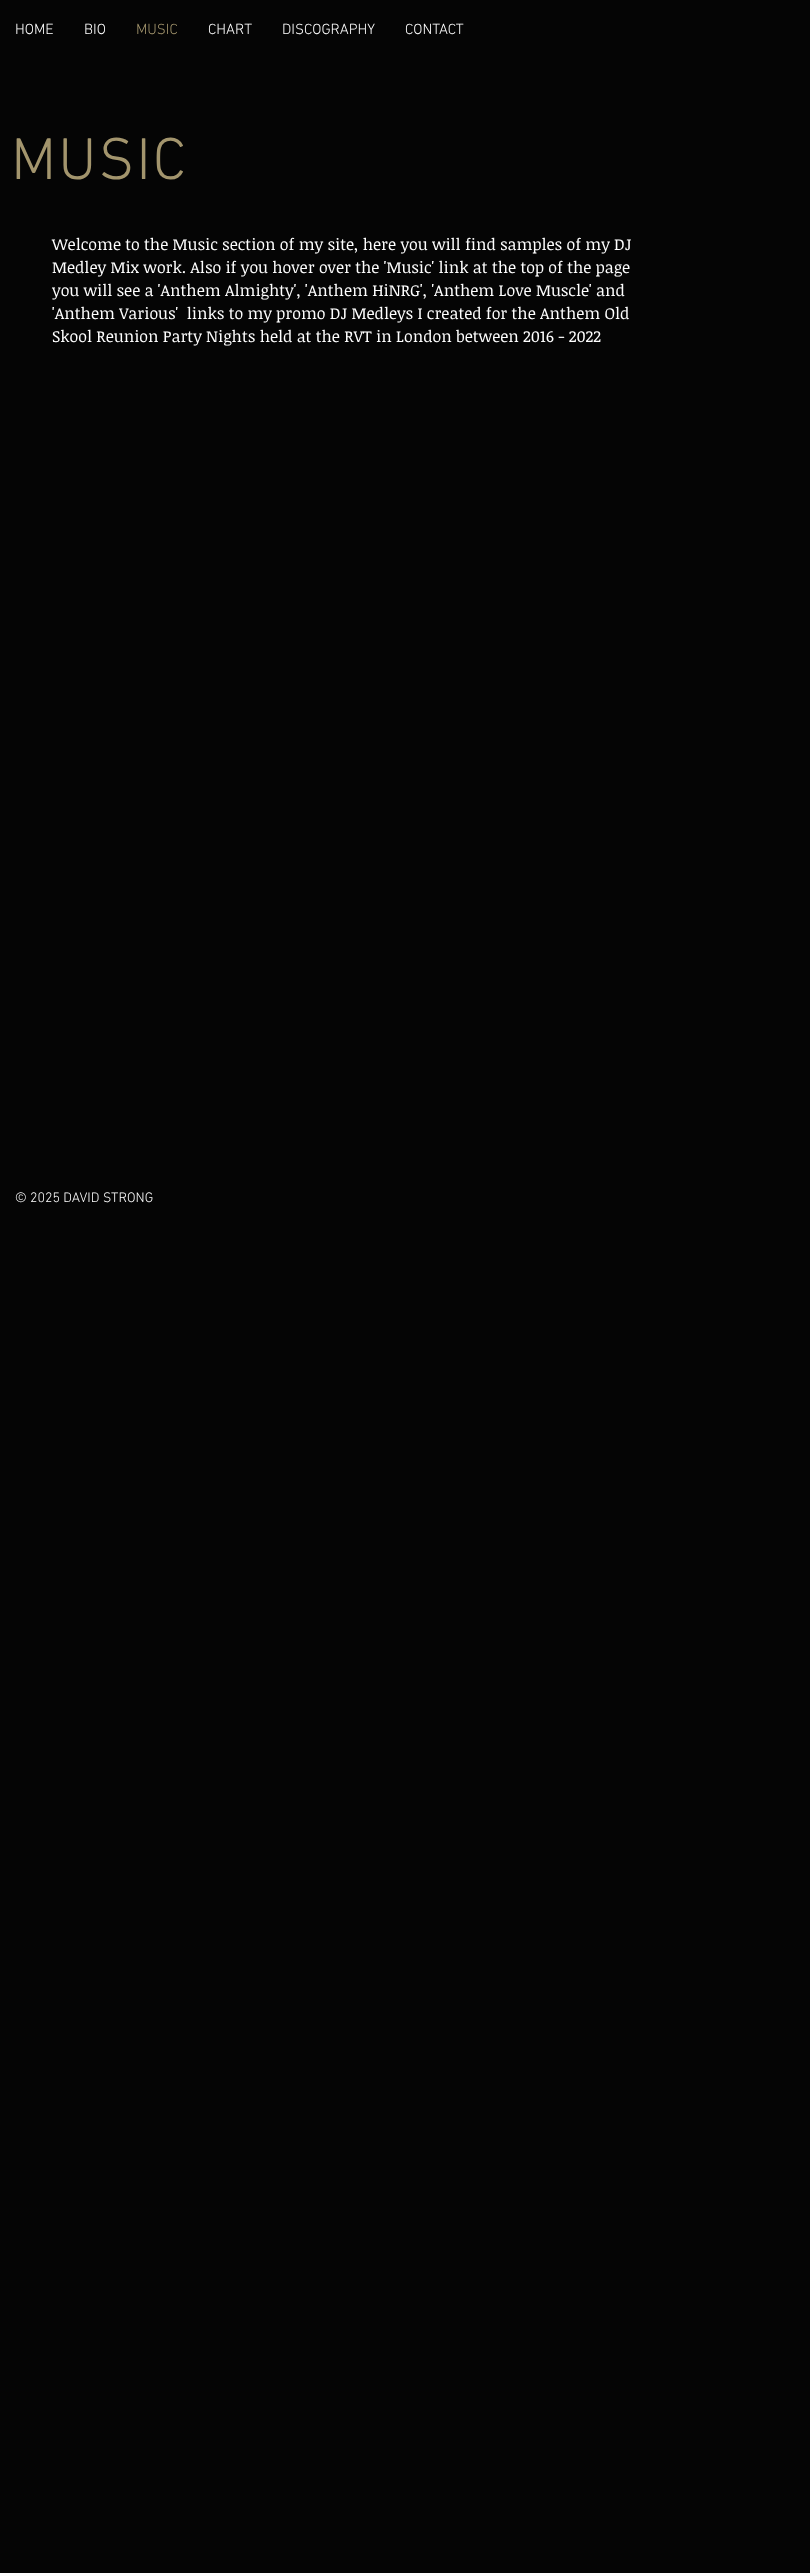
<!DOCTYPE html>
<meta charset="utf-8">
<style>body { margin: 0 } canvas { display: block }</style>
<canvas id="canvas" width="810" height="2573"></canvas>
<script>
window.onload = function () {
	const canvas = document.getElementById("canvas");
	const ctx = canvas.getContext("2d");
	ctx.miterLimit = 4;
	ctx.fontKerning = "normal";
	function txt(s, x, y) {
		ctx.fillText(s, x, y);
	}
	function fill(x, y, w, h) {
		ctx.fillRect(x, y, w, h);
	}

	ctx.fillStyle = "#050505";
	fill(0, 0, 810, 2573);
	ctx.font = "300 15px 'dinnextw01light'";
	ctx.fillStyle = "#FFFFFF";
	txt("HOME", 15, 34);
	txt("BIO", 84, 34);
	ctx.fillStyle = "#A3956D";
	txt("MUSIC", 136, 34);
	ctx.fillStyle = "#FFFFFF";
	txt("CHART", 208, 34);
	txt("DISCOGRAPHY", 282, 34);
	txt("CONTACT", 405, 34);
	ctx.letterSpacing = "2px";
	ctx.font = "300 60px 'dinnextw01light'";
	ctx.fillStyle = "#A3956D";
	txt("MUSIC", 11, 179);
	ctx.letterSpacing = "0px";
	ctx.font = "16px Noticia Text";
	ctx.fillStyle = "#FFFFFF";
	txt("Welcome to the Music section of my site, here you will find samples of my DJ", 52, 250);
	txt("Medley Mix work. Also if you hover over the 'Music' link at the top of the page", 52, 273);
	txt("you will see a 'Anthem Almighty', 'Anthem HiNRG', 'Anthem Love Muscle' and", 52, 296);
	txt("'Anthem Various'  links to my promo DJ Medleys I created for the Anthem Old", 52, 319);
	txt("Skool Reunion Party Nights held at the RVT in London between 2016 - 2022", 52, 342);
	ctx.font = "300 14px 'dinnextw01light'";
	txt("© 2025 DAVID STRONG", 15, 1202);
};
</script>
